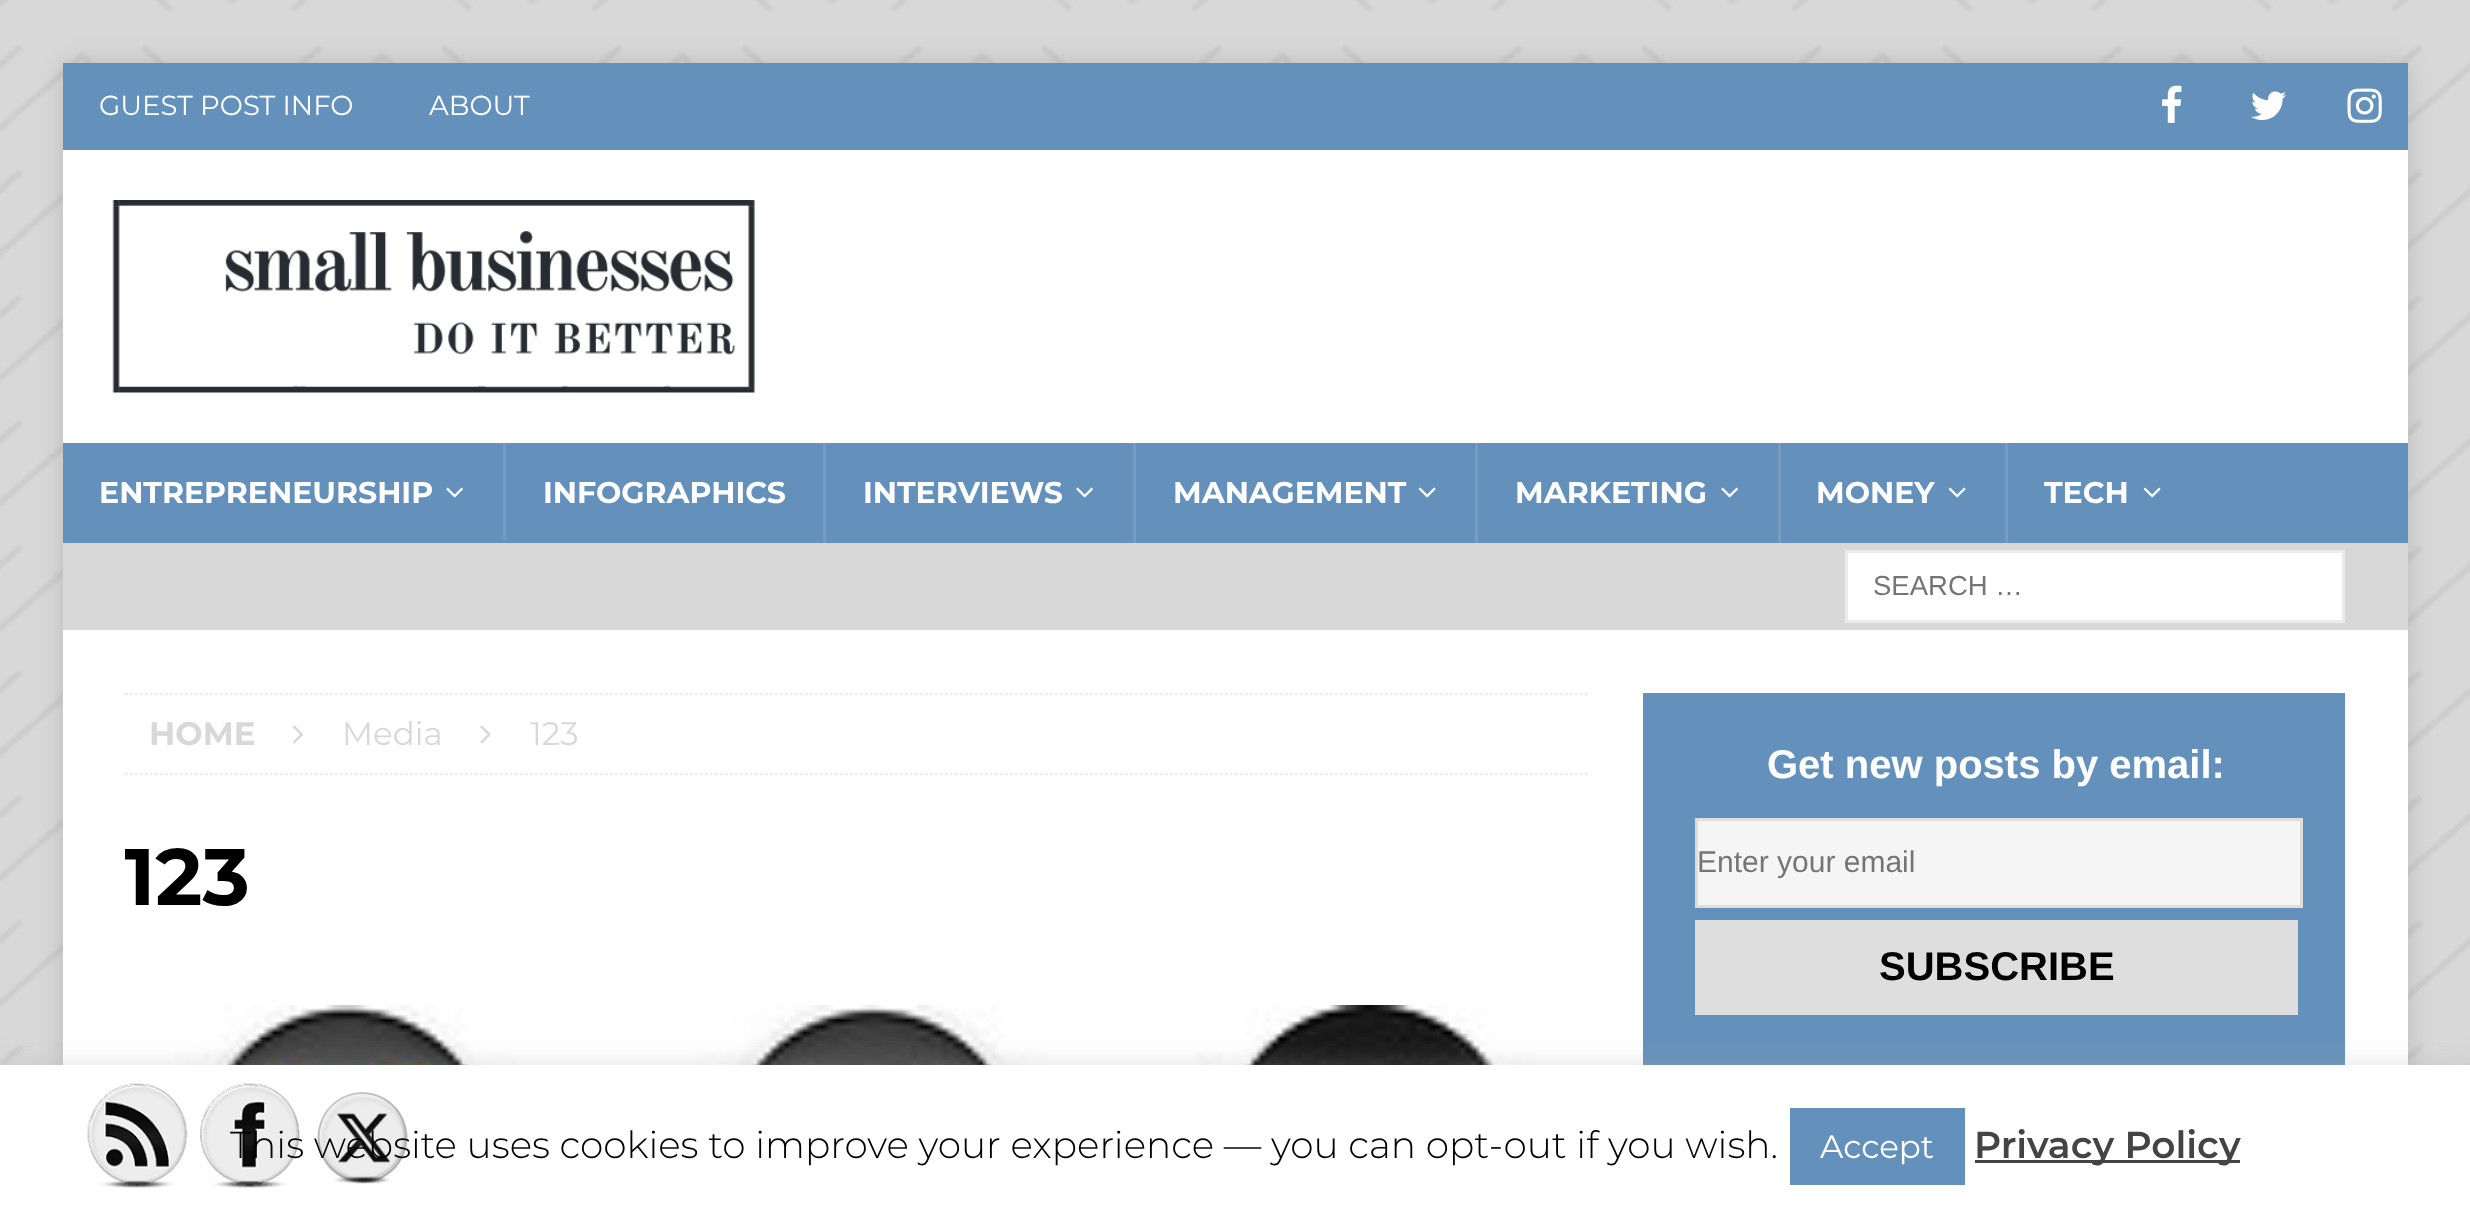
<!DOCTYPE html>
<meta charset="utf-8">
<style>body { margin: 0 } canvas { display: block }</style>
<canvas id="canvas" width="2470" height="1215"></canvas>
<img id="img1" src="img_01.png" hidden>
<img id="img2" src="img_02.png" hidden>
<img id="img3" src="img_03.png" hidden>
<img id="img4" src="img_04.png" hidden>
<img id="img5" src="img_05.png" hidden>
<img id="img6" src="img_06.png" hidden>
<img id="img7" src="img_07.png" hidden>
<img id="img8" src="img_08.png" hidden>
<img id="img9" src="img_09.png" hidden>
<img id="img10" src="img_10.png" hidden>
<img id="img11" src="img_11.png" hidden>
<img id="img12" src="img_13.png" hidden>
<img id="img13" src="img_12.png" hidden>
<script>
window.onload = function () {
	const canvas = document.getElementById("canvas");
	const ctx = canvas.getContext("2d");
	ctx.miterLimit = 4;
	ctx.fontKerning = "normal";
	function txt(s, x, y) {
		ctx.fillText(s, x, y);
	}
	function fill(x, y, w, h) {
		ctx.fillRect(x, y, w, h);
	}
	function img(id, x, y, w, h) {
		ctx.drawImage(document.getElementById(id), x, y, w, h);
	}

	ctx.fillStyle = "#FFFFFF";
	fill(0, 0, 2470, 1215);
	img("img1", 0, 0, 2470, 1065);
	ctx.fillStyle = "rgba(50, 50, 50, 0.17)";
	ctx.filter = "blur(12.5px)";
	ctx.beginPath();
	ctx.rect(63, 63, 2345, 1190);
	ctx.fill();
	ctx.filter = "none";
	ctx.fillStyle = "#6491BB";
	fill(63, 63, 2345, 87);
	img("img2", 2162, 85, 20, 38);
	img("img3", 2251, 91, 35, 29);
	img("img4", 2347, 88, 35, 35);
	ctx.fillStyle = "#FFFFFF";
	fill(63, 150, 2345, 293);
	img("img5", 112, 200, 643, 193);
	ctx.fillStyle = "#6491BB";
	fill(63, 443, 2345, 100);
	img("img6", 446, 487, 17, 11);
	ctx.fillStyle = "#749CC2";
	fill(503, 443, 3, 97);
	fill(823, 443, 3, 100);
	img("img6", 1076, 487, 17, 11);
	fill(1133, 443, 3, 100);
	img("img7", 1418, 487, 18, 11);
	fill(1475, 443, 3, 100);
	img("img6", 1721, 487, 17, 11);
	fill(1778, 443, 3, 100);
	img("img7", 1948, 487, 18, 11);
	fill(2005, 443, 3, 100);
	img("img7", 2143, 487, 18, 11);
	ctx.fillStyle = "#D8D8D8";
	fill(63, 543, 2345, 87);
	ctx.fillStyle = "#FFFFFF";
	ctx.beginPath();
	ctx.rect(1846.5, 551.5, 497, 70);
	ctx.fill();
	ctx.strokeStyle = "#EBEBEB";
	ctx.lineWidth = 3;
	ctx.stroke();
	fill(63, 630, 2345, 435);
	ctx.save();
	ctx.beginPath();
	ctx.rect(125, 693, 1463, 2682);
	ctx.clip();
	ctx.beginPath();
	ctx.moveTo(125, 694);
	ctx.lineTo(1587.5, 694);
	ctx.lineWidth = 2.5;
	ctx.setLineDash([2.5, 2.5]);
	ctx.stroke();
	ctx.restore();
	ctx.beginPath();
	ctx.moveTo(125, 774);
	ctx.lineTo(1587.5, 774);
	ctx.lineWidth = 2.5;
	ctx.setLineDash([2.5, 2.5]);
	ctx.stroke();
	img("img8", 293, 725, 11, 19);
	img("img9", 480, 725, 11, 19);
	img("img10", 175, 1005, 1358, 60);
	ctx.fillStyle = "#6491BB";
	fill(1643, 693, 702, 372);
	ctx.fillStyle = "#F5F5F5";
	ctx.beginPath();
	ctx.rect(1696.5, 819.5, 605, 87);
	ctx.fill();
	ctx.strokeStyle = "#DDDDDD";
	ctx.lineWidth = 3;
	ctx.setLineDash([]);
	ctx.stroke();
	ctx.fillStyle = "#DEDEDE";
	fill(1695, 920, 603, 95);
	ctx.fillStyle = "rgba(172, 171, 171, 0.3)";
	ctx.filter = "blur(12.5px)";
	ctx.beginPath();
	ctx.rect(0, 1063, 2470, 150);
	ctx.fill();
	ctx.filter = "none";
	ctx.fillStyle = "#FFFFFF";
	fill(0, 1065, 2470, 150);
	img("img11", 87, 1083, 101, 105);
	ctx.fillStyle = "#6491BB";
	fill(1790, 1108, 175, 77);
	ctx.fillStyle = "#444444";
	fill(1975, 1160, 265, 3);
	ctx.font = "27.5px Montserrat";
	ctx.fillStyle = "#FFFFFF";
	txt("GUEST POST INFO", 99, 115);
	txt("ABOUT", 429, 115);
	ctx.font = "bold 30px Montserrat";
	txt("ENTREPRENEURSHIP", 99, 503);
	txt("INFOGRAPHICS", 543, 503);
	txt("INTERVIEWS", 863, 503);
	txt("MANAGEMENT", 1173, 503);
	txt("MARKETING", 1515, 503);
	txt("MONEY", 1816, 503);
	txt("TECH", 2044, 503);
	ctx.font = "27.5px Liberation Sans";
	ctx.fillStyle = "#757575";
	txt("SEARCH …", 1873, 595);
	ctx.font = "bold 32.5px Montserrat";
	ctx.fillStyle = "#D8D8D8";
	txt("HOME", 149, 745);
	ctx.font = "32.5px Montserrat";
	txt("Media", 342, 745);
	txt("123", 530, 745);
	ctx.save();
	ctx.beginPath();
	ctx.rect(125, 693, 1463, 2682);
	ctx.clip();
	ctx.font = "bold 80px Montserrat";
	ctx.fillStyle = "#000000";
	txt("123", 124, 905);
	ctx.restore();
	ctx.font = "bold 40px Liberation Sans";
	ctx.fillStyle = "#FFFFFF";
	txt("Get new posts by email:", 1767, 778);
	ctx.font = "30px Liberation Sans";
	ctx.fillStyle = "#757575";
	txt("Enter your email", 1697, 872);
	ctx.font = "bold 40px Liberation Sans";
	ctx.fillStyle = "#000000";
	txt("SUBSCRIBE", 1879, 980);
	ctx.font = "300 37.5px Montserrat";
	txt("This website uses cookies to improve your experience — you can opt-out if you wish.", 230, 1158);
	img("img12", 317, 1092, 91, 92);
	img("img13", 200, 1083, 100, 105);
	ctx.font = "32.5px Montserrat";
	ctx.fillStyle = "#FFFFFF";
	txt("Accept", 1820, 1158);
	ctx.font = "600 37.5px Montserrat";
	ctx.fillStyle = "#444444";
	txt("Privacy Policy", 1974, 1158);
};
</script>
